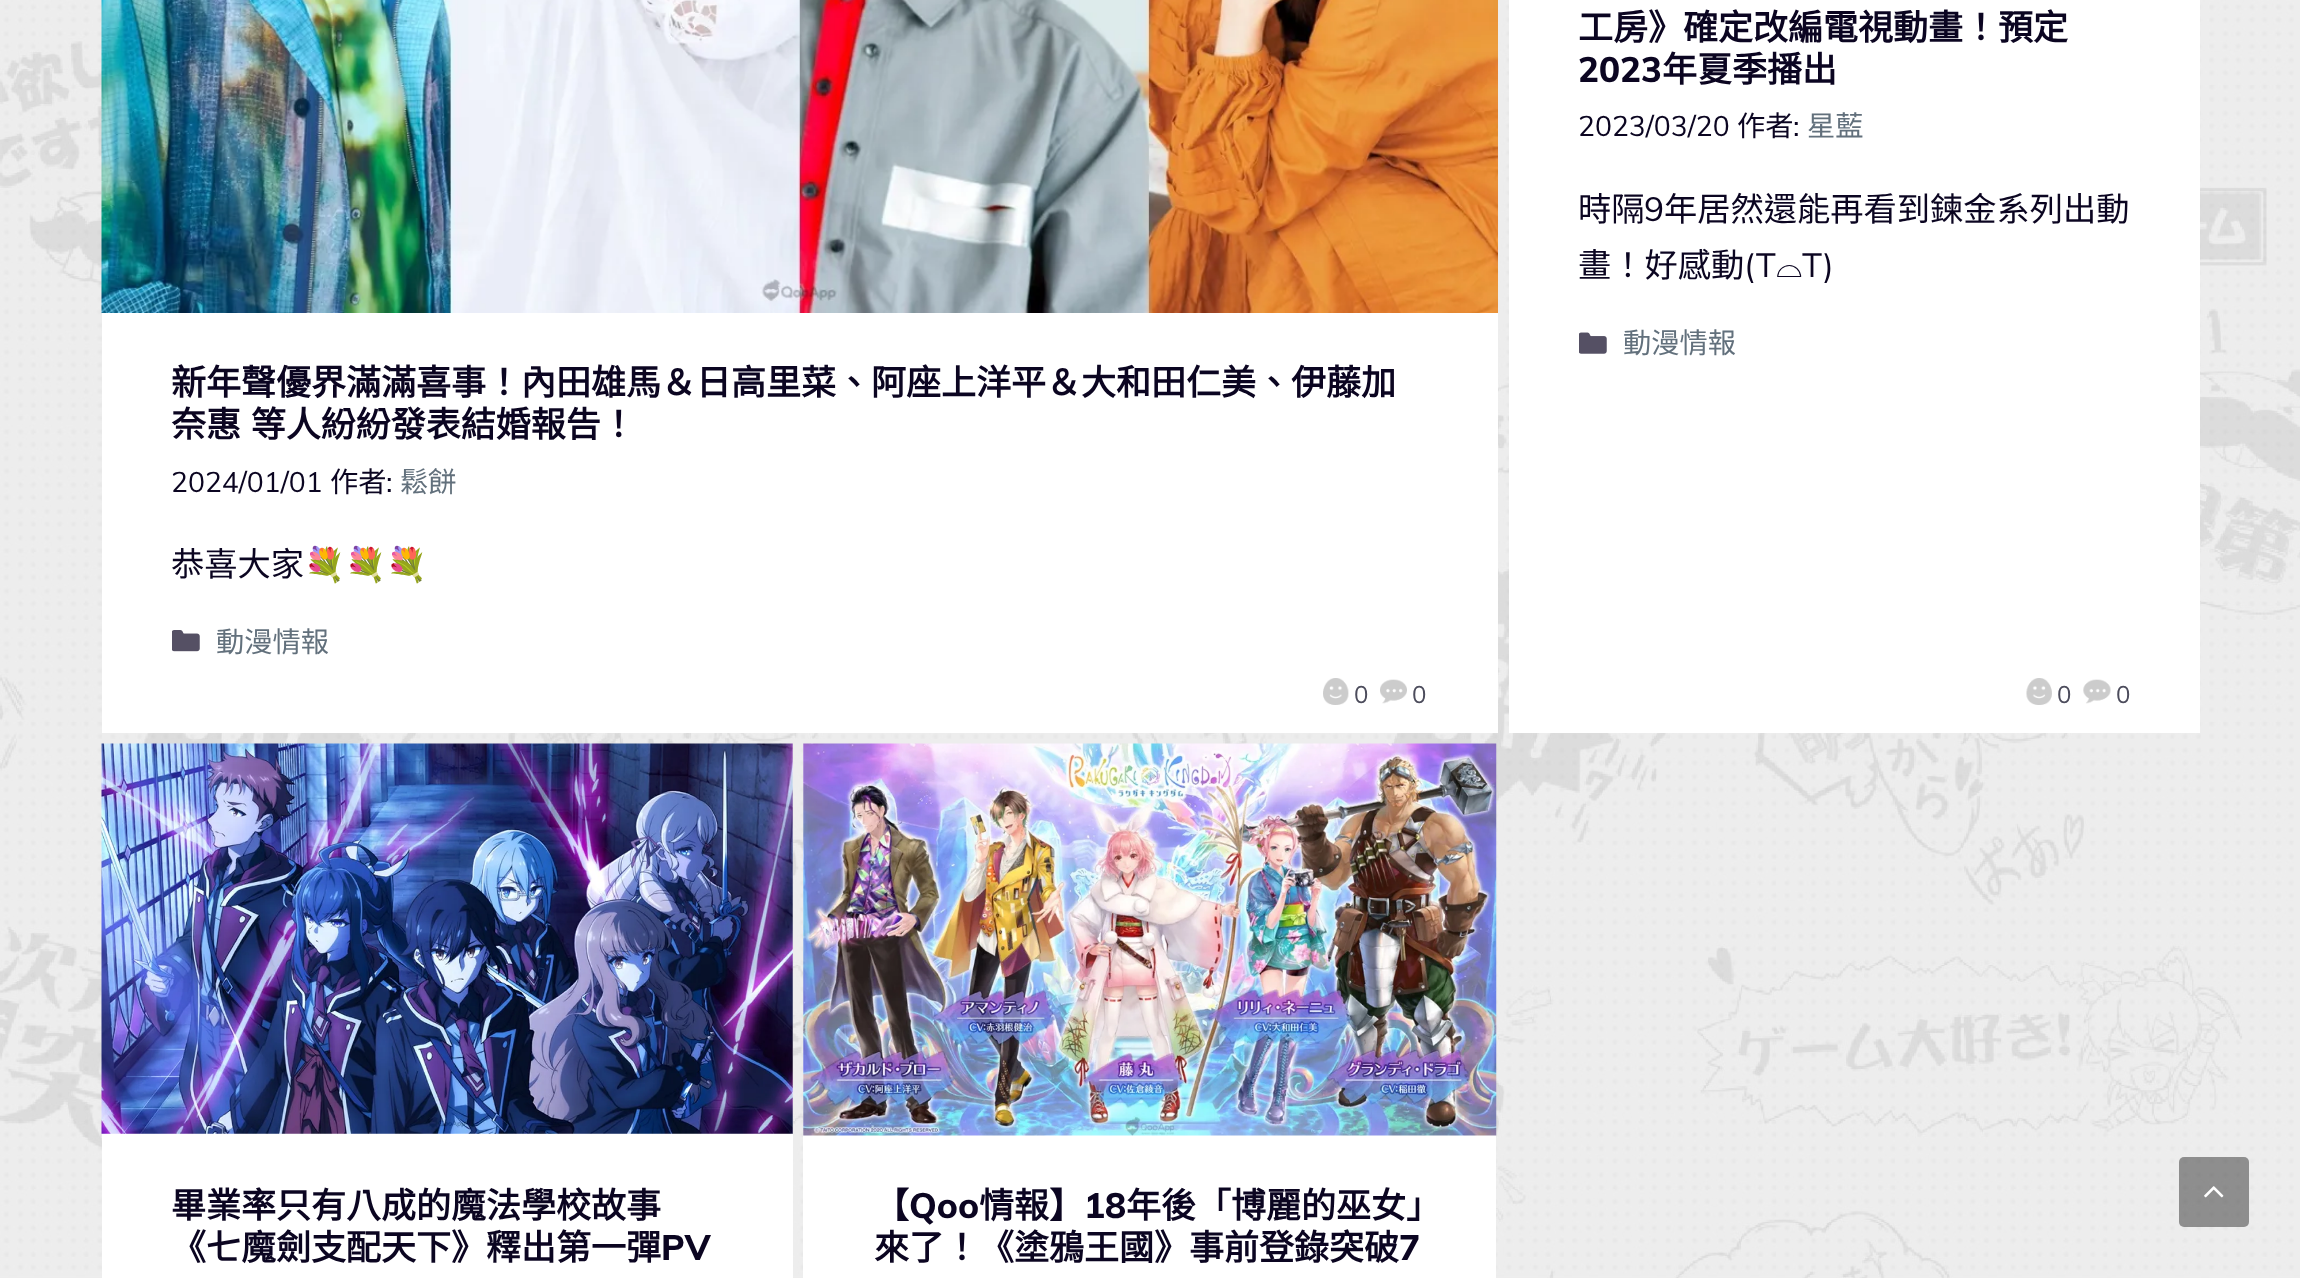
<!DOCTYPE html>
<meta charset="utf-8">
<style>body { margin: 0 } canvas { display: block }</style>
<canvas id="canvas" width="2300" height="1278"></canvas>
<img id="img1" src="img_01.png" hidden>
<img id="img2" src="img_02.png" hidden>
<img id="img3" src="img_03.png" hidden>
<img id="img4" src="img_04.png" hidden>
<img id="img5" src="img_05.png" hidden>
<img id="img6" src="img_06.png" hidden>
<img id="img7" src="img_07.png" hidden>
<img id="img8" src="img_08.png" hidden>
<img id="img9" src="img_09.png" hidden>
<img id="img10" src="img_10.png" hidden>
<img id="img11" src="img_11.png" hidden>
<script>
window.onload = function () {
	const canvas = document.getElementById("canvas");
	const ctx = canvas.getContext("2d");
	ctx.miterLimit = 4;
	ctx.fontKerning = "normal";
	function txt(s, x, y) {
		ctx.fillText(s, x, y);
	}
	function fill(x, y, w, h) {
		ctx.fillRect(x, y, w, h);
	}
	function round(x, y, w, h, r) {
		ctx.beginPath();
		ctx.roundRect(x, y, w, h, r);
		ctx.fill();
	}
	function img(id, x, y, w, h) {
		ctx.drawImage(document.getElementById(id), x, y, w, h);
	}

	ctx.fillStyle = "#FFFFFF";
	fill(0, 0, 2300, 1278);
	img("img1", 0, 0, 2300, 1278);
	fill(102, 313, 1396, 420);
	img("img2", 101, 0, 1397, 313);
	img("img3", 1323, 678, 26, 27);
	img("img4", 1380, 679, 27, 25);
	img("img5", 172, 630, 28, 22);
	fill(1509, 0, 691, 733);
	img("img6", 2026, 678, 26, 27);
	img("img7", 2083, 679, 28, 25);
	img("img8", 1579, 332, 28, 22);
	fill(102, 744, 691, 534);
	img("img9", 101, 743, 692, 391);
	fill(803, 744, 693, 534);
	img("img10", 803, 743, 694, 393);
	ctx.fillStyle = "rgba(0, 0, 0, 0.4)";
	round(2179, 1157, 70, 70, 5);
	img("img11", 2204, 1186, 20, 12);
	ctx.font = "bold 35px Noto Sans CJK TC";
	ctx.fillStyle = "#0B0521";
	txt("新年聲優界滿滿喜事！內田雄馬＆日高里菜、阿座上洋平＆大和田仁美、伊藤加", 171, 395);
	ctx.wordSpacing = "2px";
	txt("奈惠 等人紛紛發表結婚報告！", 171, 437);
	ctx.wordSpacing = "0px";
	ctx.font = "28.25px Muli";
	txt("2024/01/01", 171, 492);
	ctx.font = "28.25px Noto Sans CJK TC";
	txt("作者", 330, 492);
	ctx.font = "28.25px Muli";
	txt(":", 386, 492);
	ctx.font = "28.25px Noto Sans CJK TC";
	ctx.fillStyle = "#62707C";
	txt("鬆餅", 400, 492);
	ctx.font = "24px Muli";
	ctx.fillStyle = "#4C4C5C";
	txt("0", 1354, 703);
	txt("0", 1412, 703);
	ctx.font = "33.25px Noto Sans CJK TC";
	ctx.fillStyle = "#0B0521";
	txt("恭喜大家", 171, 576);
	ctx.font = "33.25px Noto Color Emoji";
	txt("💐💐💐", 304, 576);
	ctx.font = "28.25px Noto Sans CJK TC";
	ctx.fillStyle = "#62707C";
	txt("動漫情報", 216, 652);
	ctx.font = "bold 35px Noto Sans CJK TC";
	ctx.fillStyle = "#0B0521";
	txt("工房》確定改編電視動畫！預定", 1578, 40);
	ctx.font = "800 35px Muli";
	txt("2023", 1578, 82);
	ctx.font = "bold 35px Noto Sans CJK TC";
	txt("年夏季播出", 1662, 82);
	ctx.font = "28.25px Muli";
	txt("2023/03/20", 1578, 136);
	ctx.font = "28.25px Noto Sans CJK TC";
	txt("作者", 1737, 136);
	ctx.font = "28.25px Muli";
	txt(":", 1793, 136);
	ctx.font = "28.25px Noto Sans CJK TC";
	ctx.fillStyle = "#62707C";
	txt("星藍", 1807, 136);
	ctx.font = "24px Muli";
	ctx.fillStyle = "#4C4C5C";
	txt("0", 2057, 703);
	txt("0", 2116, 703);
	ctx.font = "33.25px Noto Sans CJK TC";
	ctx.fillStyle = "#0B0521";
	txt("時隔", 1578, 221);
	ctx.font = "33.25px Muli";
	txt("9", 1644, 221);
	ctx.font = "33.25px Noto Sans CJK TC";
	txt("年居然還能再看到鍊金系列出動", 1664, 221);
	txt("畫！好感動", 1578, 277);
	ctx.font = "33.25px Muli";
	txt("(T", 1744, 277);
	ctx.font = "33.25px FreeSerif";
	txt("⌓", 1776, 277);
	ctx.font = "33.25px Muli";
	txt("T)", 1802, 277);
	ctx.font = "28.25px Noto Sans CJK TC";
	ctx.fillStyle = "#62707C";
	txt("動漫情報", 1623, 353);
	ctx.font = "bold 35px Noto Sans CJK TC";
	ctx.fillStyle = "#0B0521";
	txt("畢業率只有八成的魔法學校故事", 171, 1218);
	txt("《七魔劍支配天下》釋出第一彈", 171, 1260);
	ctx.font = "800 35px Muli";
	txt("PV", 661, 1260);
	ctx.font = "bold 35px Noto Sans CJK TC";
	txt("【", 874, 1218);
	ctx.font = "800 35px Muli";
	txt("Qoo", 909, 1218);
	ctx.font = "bold 35px Noto Sans CJK TC";
	txt("情報】", 979, 1218);
	ctx.font = "800 35px Muli";
	txt("18", 1084, 1218);
	ctx.font = "bold 35px Noto Sans CJK TC";
	txt("年後「博麗的巫女」", 1126, 1218);
	txt("來了！《塗鴉王國》事前登錄突破", 874, 1260);
	ctx.font = "800 35px Muli";
	txt("7", 1399, 1260);
};
</script>
